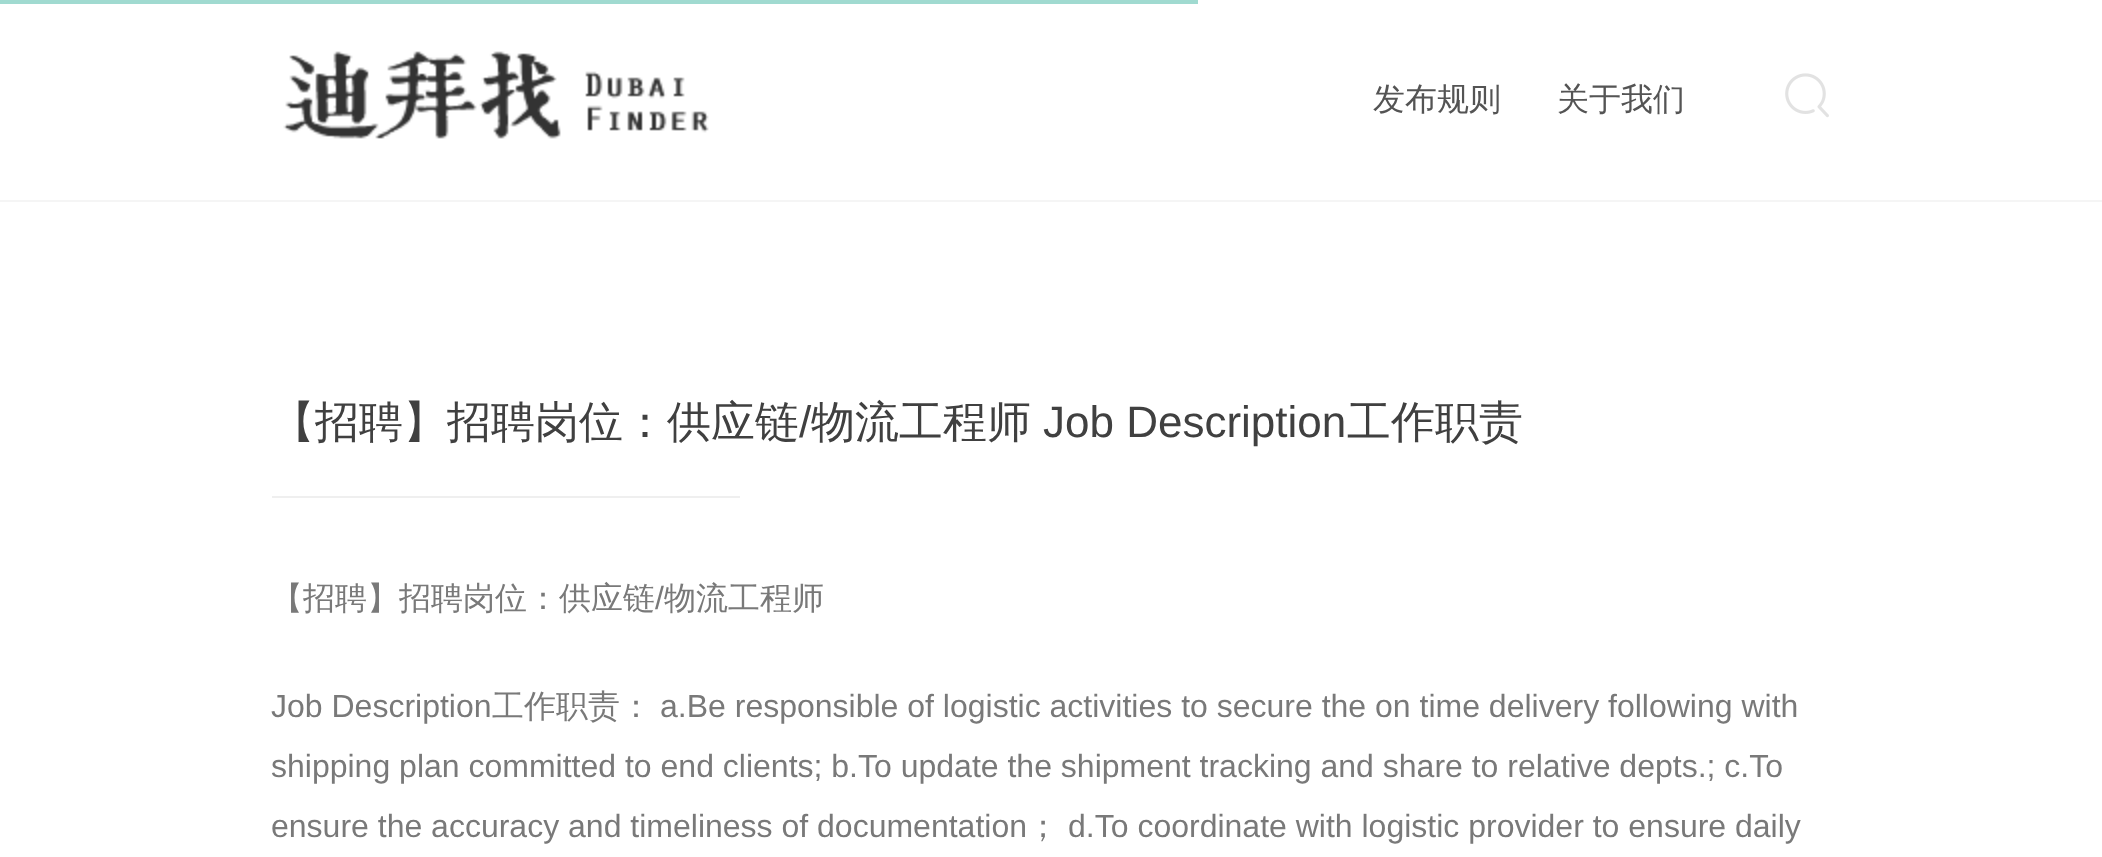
<!DOCTYPE html>
<meta charset="utf-8">
<style>body { margin: 0 } canvas { display: block }</style>
<canvas id="canvas" width="2102" height="857"></canvas>
<img id="img1" src="img_01.png" hidden>
<img id="img2" src="img_02.png" hidden>
<script>
window.onload = function () {
	const canvas = document.getElementById("canvas");
	const ctx = canvas.getContext("2d");
	ctx.miterLimit = 4;
	ctx.fontKerning = "normal";
	function txt(s, x, y) {
		ctx.fillText(s, x, y);
	}
	function fill(x, y, w, h) {
		ctx.fillRect(x, y, w, h);
	}
	function img(id, x, y, w, h) {
		ctx.drawImage(document.getElementById(id), x, y, w, h);
	}

	ctx.fillStyle = "#FFFFFF";
	fill(0, 0, 2102, 857);
	ctx.fillStyle = "#A0DAD0";
	fill(0, 0, 1198, 4);
	ctx.fillStyle = "#F5F5F5";
	fill(0, 200, 2102, 2);
	img("img1", 283, 51, 426, 88);
	img("img2", 1785, 73, 44, 45);
	ctx.fillStyle = "#EFEFEF";
	fill(272, 496, 468, 2);
	ctx.font = "500 32px WenQuanYi Zen Hei";
	ctx.fillStyle = "#545454";
	txt("发布规则", 1373, 110);
	txt("关于我们", 1557, 110);
	ctx.font = "500 44px WenQuanYi Zen Hei";
	ctx.fillStyle = "#404040";
	txt("【招聘】招聘岗位：供应链", 271, 437);
	ctx.font = "44px Liberation Sans";
	txt("/", 799, 437);
	ctx.font = "500 44px WenQuanYi Zen Hei";
	txt("物流工程师", 811, 437);
	ctx.font = "44px Liberation Sans";
	txt("Job Description", 1043, 437);
	ctx.font = "500 44px WenQuanYi Zen Hei";
	txt("工作职责", 1347, 437);
	ctx.font = "500 32px WenQuanYi Zen Hei";
	ctx.fillStyle = "#797979";
	txt("【招聘】招聘岗位：供应链", 271, 609);
	ctx.font = "32px Liberation Sans";
	txt("/", 655, 609);
	ctx.font = "500 32px WenQuanYi Zen Hei";
	txt("物流工程师", 664, 609);
	ctx.font = "32px Liberation Sans";
	txt("Job Description", 271, 717);
	ctx.font = "500 32px WenQuanYi Zen Hei";
	txt("工作职责：", 492, 717);
	ctx.font = "32px Liberation Sans";
	txt("a.Be responsible of logistic activities to secure the on time delivery following with", 660, 717);
	txt("shipping plan committed to end clients; b.To update the shipment tracking and share to relative depts.; c.To", 271, 777);
	txt("ensure the accuracy and timeliness of documentation", 271, 837);
	ctx.font = "500 32px WenQuanYi Zen Hei";
	txt("；", 1027, 837);
	ctx.font = "32px Liberation Sans";
	txt("d.To coordinate with logistic provider to ensure daily", 1068, 837);
};
</script>
